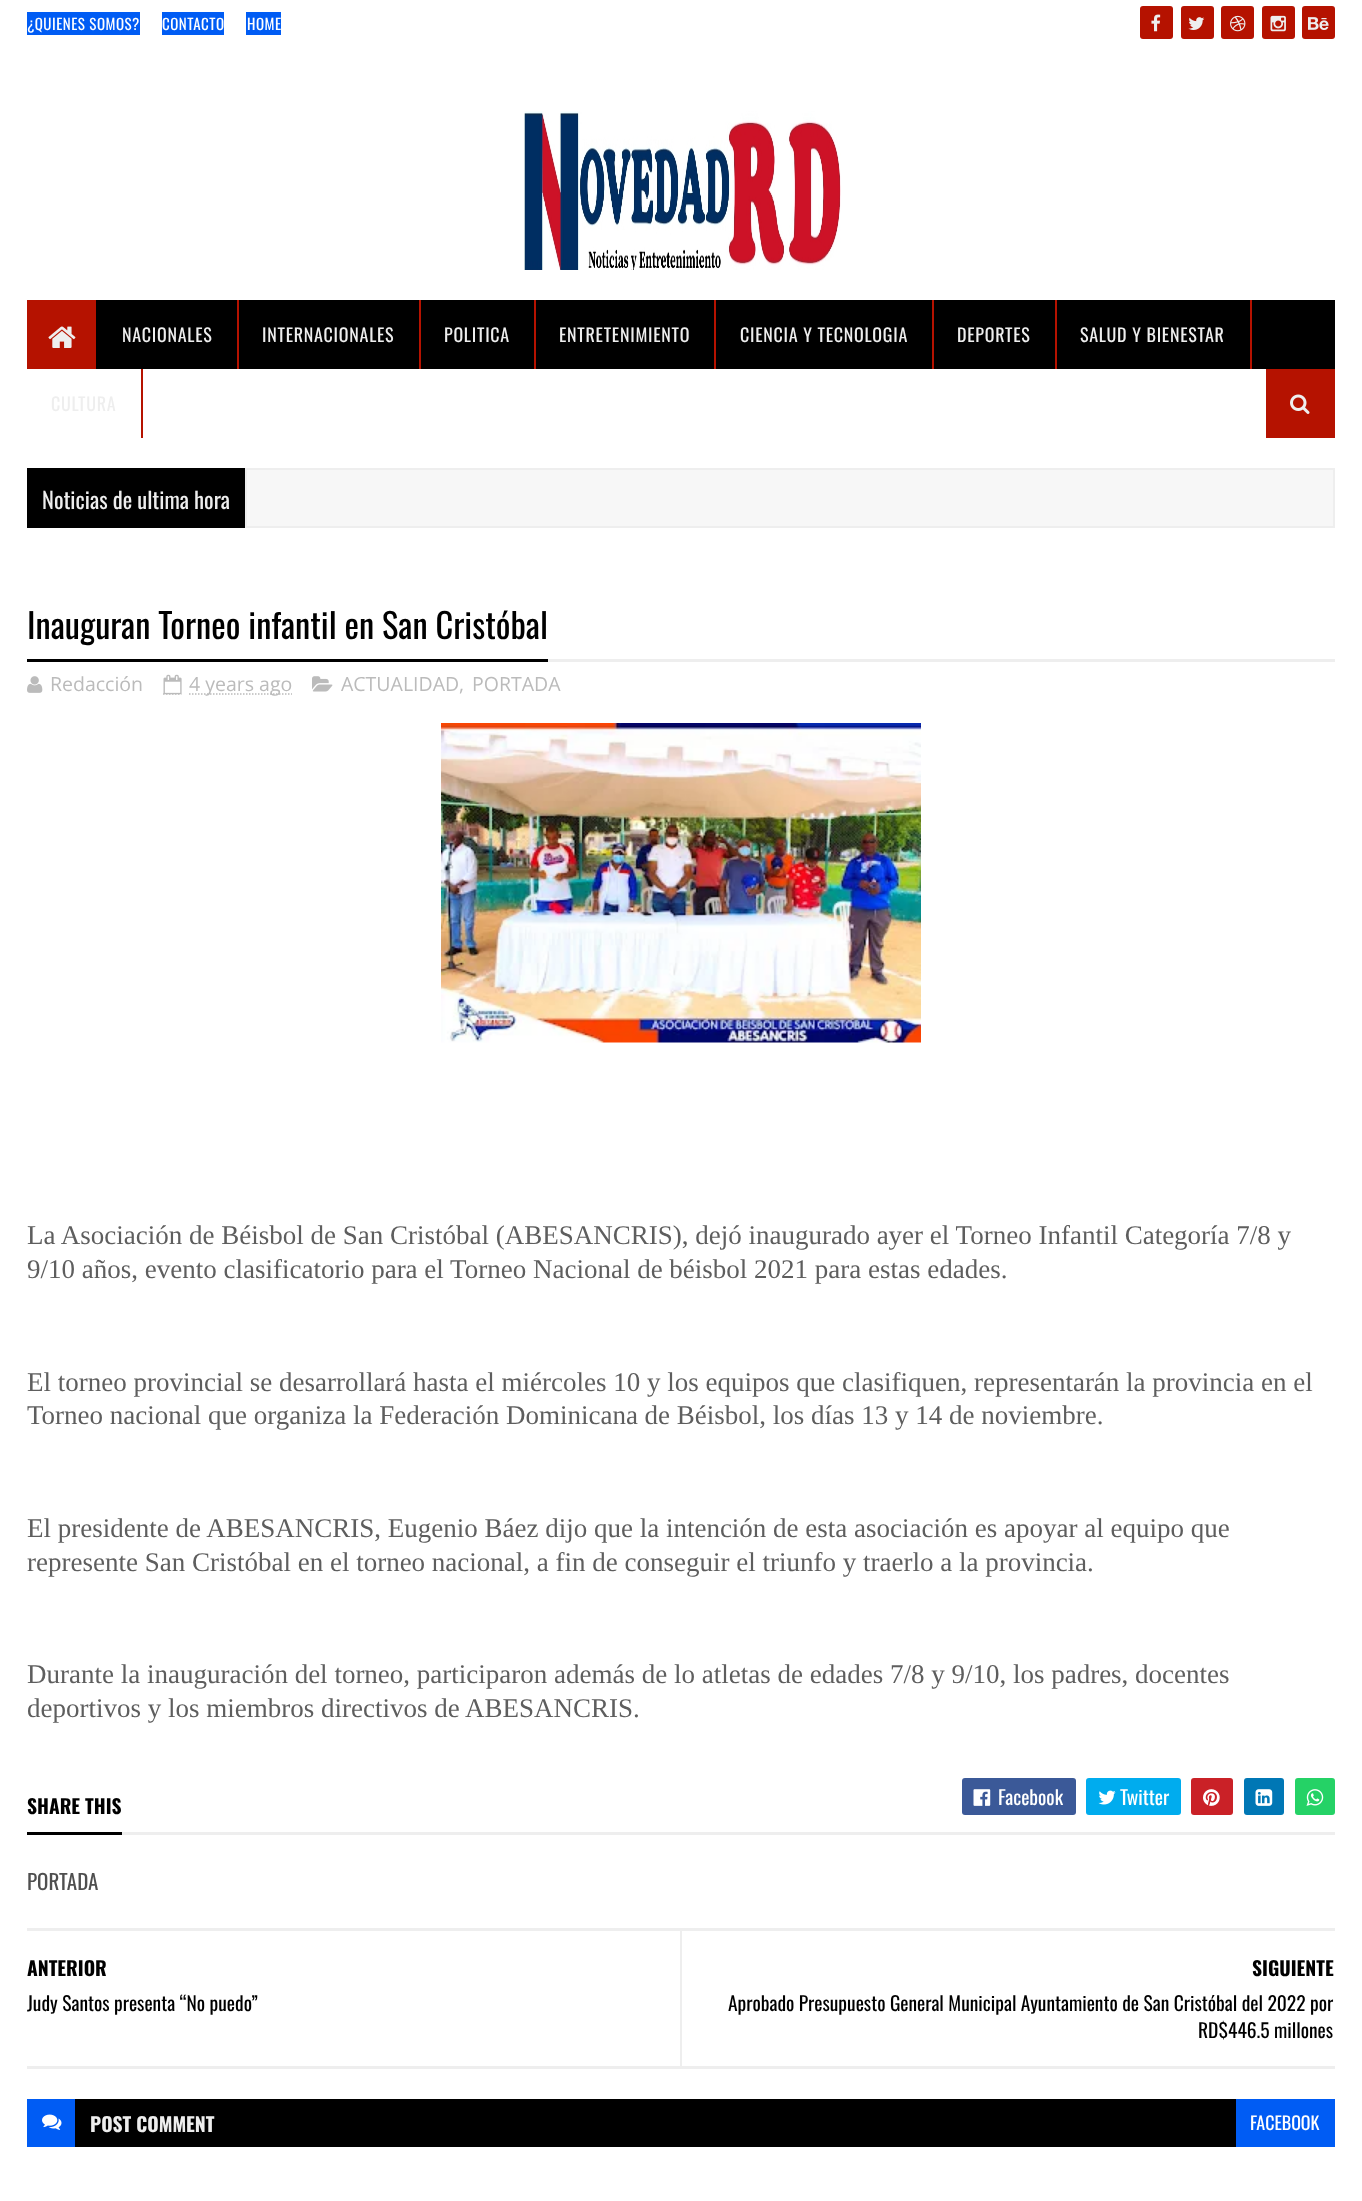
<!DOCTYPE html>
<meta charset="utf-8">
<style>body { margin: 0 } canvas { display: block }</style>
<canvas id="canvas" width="1362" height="2201"></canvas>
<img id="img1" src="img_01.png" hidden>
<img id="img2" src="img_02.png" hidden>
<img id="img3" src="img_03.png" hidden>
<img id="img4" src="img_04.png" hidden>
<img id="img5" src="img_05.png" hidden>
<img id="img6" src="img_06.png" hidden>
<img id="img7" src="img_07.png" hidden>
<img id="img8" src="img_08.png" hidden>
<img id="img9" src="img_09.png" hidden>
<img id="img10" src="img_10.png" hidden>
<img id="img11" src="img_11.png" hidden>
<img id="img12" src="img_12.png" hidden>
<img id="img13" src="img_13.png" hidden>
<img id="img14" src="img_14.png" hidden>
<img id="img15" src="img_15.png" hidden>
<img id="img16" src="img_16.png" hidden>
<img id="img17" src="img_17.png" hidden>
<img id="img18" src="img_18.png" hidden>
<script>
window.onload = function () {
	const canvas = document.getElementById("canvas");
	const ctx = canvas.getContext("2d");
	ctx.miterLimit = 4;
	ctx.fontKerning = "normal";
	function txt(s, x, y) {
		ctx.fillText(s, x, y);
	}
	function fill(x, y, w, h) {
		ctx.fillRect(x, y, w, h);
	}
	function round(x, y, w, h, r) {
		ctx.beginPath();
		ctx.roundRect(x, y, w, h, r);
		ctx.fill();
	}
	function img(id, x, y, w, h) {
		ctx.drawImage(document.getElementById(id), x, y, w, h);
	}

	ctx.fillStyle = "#FFFFFF";
	fill(0, 0, 1362, 2201);
	ctx.fillStyle = "#005CF4";
	fill(27, 12, 113, 23);
	fill(162, 12, 62, 23);
	fill(246, 12, 35, 23);
	ctx.fillStyle = "#B51200";
	round(1140, 6, 33, 33, 3);
	img("img1", 1151, 14, 10, 18);
	round(1181, 6, 33, 33, 3);
	img("img2", 1188, 17, 17, 13);
	round(1221, 6, 33, 33, 3);
	img("img3", 1230, 15, 16, 17);
	round(1262, 6, 33, 33, 3);
	img("img4", 1270, 15, 16, 17);
	round(1302, 6, 33, 33, 3);
	img("img5", 1308, 17, 21, 13);
	img("img6", 524, 111, 317, 159);
	ctx.fillStyle = "#000000";
	fill(96, 300, 1239, 69);
	ctx.fillStyle = "#B51200";
	fill(27, 300, 69, 69);
	img("img7", 48, 326, 28, 22);
	fill(237, 300, 2, 69);
	fill(419, 300, 2, 69);
	fill(534, 300, 2, 69);
	fill(714, 300, 2, 69);
	fill(932, 300, 2, 69);
	fill(1055, 300, 2, 69);
	fill(1250, 300, 2, 69);
	fill(141, 369, 2, 69);
	fill(1266, 369, 69, 69);
	img("img8", 1290, 394, 20, 20);
	ctx.fillStyle = "#000000";
	fill(27, 468, 218, 60);
	ctx.fillStyle = "#F7F7F7";
	ctx.beginPath();
	ctx.rect(246, 469, 1088, 58);
	ctx.fill();
	ctx.strokeStyle = "#EEEEEE";
	ctx.lineWidth = 2;
	ctx.stroke();
	ctx.fillStyle = "#EEEEEE";
	fill(548, 659, 787, 3);
	ctx.fillStyle = "#000000";
	fill(27, 659, 521, 3);
	img("img9", 27, 676, 16, 17);
	ctx.beginPath();
	ctx.moveTo(163, 694);
	ctx.lineTo(181.5, 694);
	ctx.strokeStyle = "#BBBBBB";
	ctx.lineWidth = 1.5;
	ctx.setLineDash([1.5, 1.5]);
	ctx.stroke();
	img("img10", 163, 674, 19, 21);
	ctx.beginPath();
	ctx.moveTo(189, 694);
	ctx.lineTo(292, 694);
	ctx.stroke();
	img("img11", 312, 676, 21, 16);
	img("img12", 441, 723, 480, 320);
	ctx.fillStyle = "#EEEEEE";
	fill(122, 1832, 1213, 3);
	ctx.fillStyle = "#000000";
	fill(27, 1832, 95, 3);
	ctx.fillStyle = "#3B5998";
	round(962, 1778, 114, 37, 3);
	img("img13", 973, 1789, 18, 17);
	ctx.fillStyle = "#00ACEE";
	round(1086, 1778, 95, 37, 3);
	img("img14", 1098, 1790, 18, 15);
	ctx.fillStyle = "#CA2127";
	round(1191, 1778, 42, 37, 3);
	img("img15", 1203, 1789, 17, 17);
	ctx.fillStyle = "#0077B5";
	round(1244, 1778, 40, 37, 3);
	img("img16", 1255, 1789, 18, 17);
	ctx.fillStyle = "#25D266";
	round(1295, 1778, 40, 37, 3);
	img("img17", 1306, 1789, 18, 17);
	ctx.fillStyle = "#EEEEEE";
	fill(27, 1928, 1308, 3);
	fill(27, 2066, 1308, 3);
	fill(680, 1931, 2, 135);
	ctx.fillStyle = "#000000";
	fill(75, 2099, 1161, 48);
	ctx.fillStyle = "#005CF4";
	fill(27, 2099, 48, 48);
	img("img18", 42, 2114, 20, 16);
	fill(1236, 2099, 99, 48);
	ctx.letterSpacing = "0.5px";
	ctx.font = "15px Oswald";
	ctx.fillStyle = "#FFFFFF";
	txt("¿QUIENES SOMOS?", 27, 30);
	txt("CONTACTO", 162, 30);
	txt("HOME", 247, 30);
	ctx.letterSpacing = "0.75px";
	ctx.font = "18px Oswald";
	ctx.fillStyle = "#EEEEEE";
	txt("NACIONALES", 122, 342);
	txt("INTERNACIONALES", 262, 342);
	txt("POLITICA", 444, 342);
	txt("ENTRETENIMIENTO", 559, 342);
	txt("CIENCIA Y TECNOLOGIA", 740, 342);
	txt("DEPORTES", 957, 342);
	txt("SALUD Y BIENESTAR", 1080, 342);
	txt("CULTURA", 51, 411);
	ctx.letterSpacing = "0px";
	ctx.font = "22.5px Oswald";
	txt("Noticias de ultima hora", 42, 509);
	ctx.font = "34.5px Oswald";
	ctx.fillStyle = "#000000";
	txt("Inauguran Torneo infantil en San Cristóbal", 27, 639);
	ctx.font = "19.5px Open Sans";
	ctx.fillStyle = "#BBBBBB";
	txt("Redacción", 50, 691);
	txt("4 years ago", 189, 691);
	txt("ACTUALIDAD", 341, 691);
	txt(",", 459, 691);
	txt("PORTADA", 472, 691);
	ctx.font = "27px Liberation Serif";
	ctx.fillStyle = "#5E5E5E";
	txt("La Asociación de Béisbol de San Cristóbal (ABESANCRIS), dejó inaugurado ayer el Torneo Infantil Categoría 7/8 y", 27, 1244);
	txt("9/10 años, evento clasificatorio para el Torneo Nacional de béisbol 2021 para estas edades.", 27, 1278);
	txt("El torneo provincial se desarrollará hasta el miércoles 10 y los equipos que clasifiquen, representarán la provincia en el", 27, 1391);
	txt("Torneo nacional que organiza la Federación Dominicana de Béisbol, los días 13 y 14 de noviembre.", 27, 1424);
	txt("El presidente de ABESANCRIS, Eugenio Báez dijo que la intención de esta asociación es apoyar al equipo que", 27, 1537);
	txt("represente San Cristóbal en el torneo nacional, a fin de conseguir el triunfo y traerlo a la provincia.", 27, 1571);
	txt("Durante la inauguración del torneo, participaron además de lo atletas de edades 7/8 y 9/10, los padres, docentes", 27, 1683);
	txt("deportivos y los miembros directivos de ABESANCRIS.", 27, 1717);
	ctx.font = "bold 19.5px Oswald";
	ctx.fillStyle = "#000000";
	txt("SHARE THIS", 27, 1814);
	ctx.font = "19.5px Oswald";
	ctx.fillStyle = "#FFFFFF";
	txt("Facebook", 998, 1805);
	txt("Twitter", 1120, 1805);
	ctx.font = "21px Oswald";
	ctx.fillStyle = "#4F4F4F";
	txt("PORTADA", 27, 1890);
	ctx.font = "bold 19.5px Oswald";
	ctx.fillStyle = "#000000";
	txt("ANTERIOR", 27, 1976);
	ctx.font = "19.5px Oswald";
	txt("Judy Santos presenta “No puedo”", 27, 2011);
	ctx.font = "bold 19.5px Oswald";
	txt("SIGUIENTE", 1252, 1976);
	ctx.font = "19.5px Oswald";
	txt("Aprobado Presupuesto General Municipal Ayuntamiento de San Cristóbal del 2022 por", 728, 2011);
	txt("RD$446.5 millones", 1198, 2038);
	ctx.font = "bold 19.5px Oswald";
	ctx.fillStyle = "#EEEEEE";
	txt("POST COMMENT", 90, 2132);
	ctx.font = "18px Oswald";
	ctx.fillStyle = "#FFFFFF";
	txt("FACEBOOK", 1250, 2130);
};
</script>
